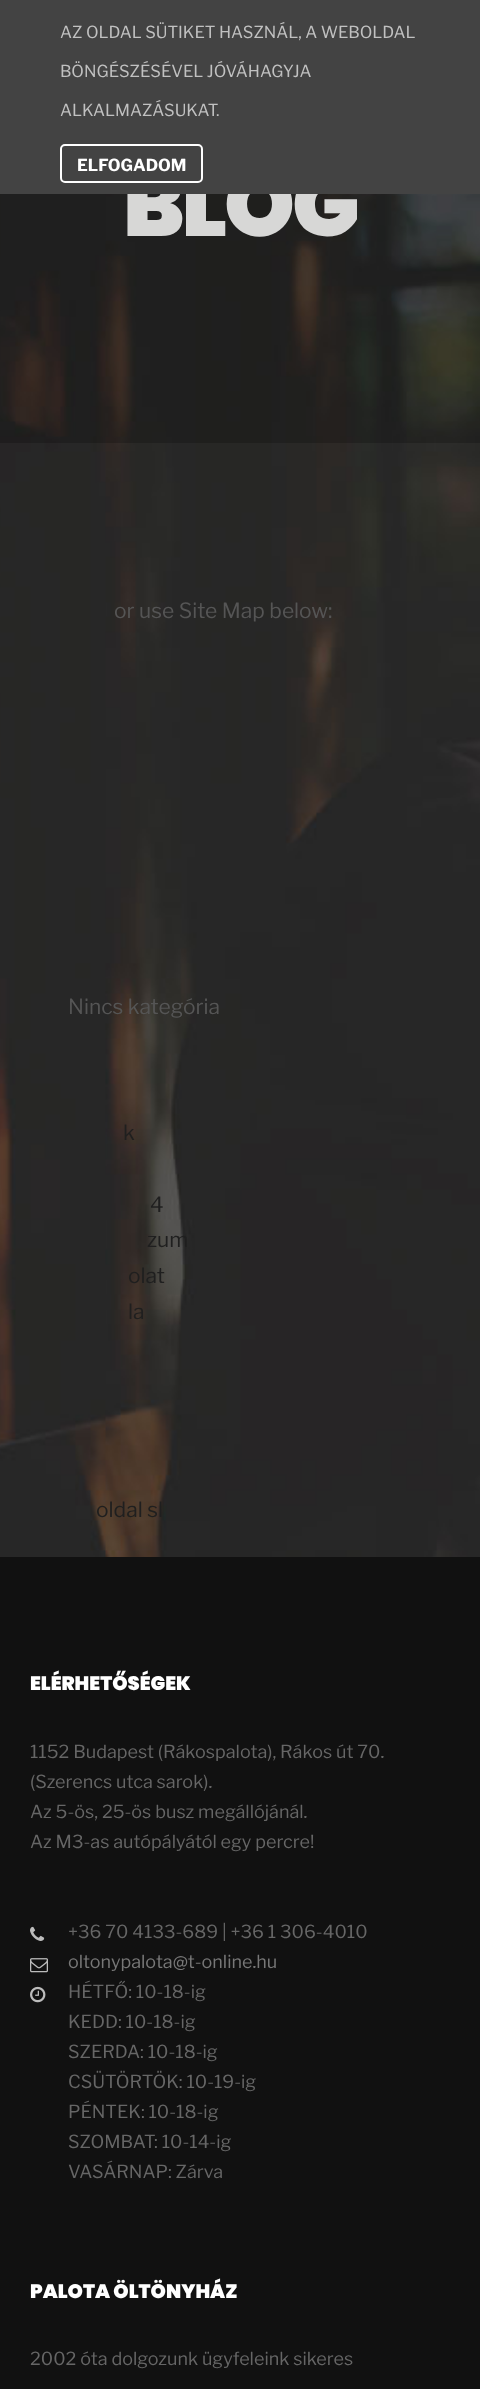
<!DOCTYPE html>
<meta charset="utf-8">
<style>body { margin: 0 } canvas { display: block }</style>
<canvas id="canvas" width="480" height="2389"></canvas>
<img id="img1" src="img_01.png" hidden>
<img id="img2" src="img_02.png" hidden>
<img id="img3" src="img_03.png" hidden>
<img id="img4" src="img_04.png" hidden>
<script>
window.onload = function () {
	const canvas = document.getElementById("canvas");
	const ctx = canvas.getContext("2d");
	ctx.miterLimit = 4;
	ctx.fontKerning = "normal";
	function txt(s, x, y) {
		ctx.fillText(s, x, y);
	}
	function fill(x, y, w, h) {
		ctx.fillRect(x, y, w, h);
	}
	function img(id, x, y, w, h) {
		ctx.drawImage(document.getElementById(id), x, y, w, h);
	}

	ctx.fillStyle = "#FFFFFF";
	fill(0, 0, 480, 2389);
	img("img1", 0, 194, 480, 1363);
	ctx.fillStyle = "rgba(0, 0, 0, 0.2)";
	fill(0, 194, 480, 249);
	ctx.fillStyle = "#111111";
	fill(0, 1557, 480, 832);
	img("img2", 30, 1926, 15, 15);
	img("img3", 30, 1958, 18, 15);
	img("img4", 30, 1986, 16, 17);
	ctx.letterSpacing = "-3px";
	ctx.font = "900 90px Poppins";
	ctx.fillStyle = "#D7D7D6";
	txt("BLOG", 123, 236);
	ctx.fillStyle = "#434343";
	fill(0, 0, 480, 194);
	ctx.beginPath();
	ctx.roundRect(61, 145, 141, 37, 4);
	ctx.strokeStyle = "#FFFFFF";
	ctx.lineWidth = 2;
	ctx.stroke();
	ctx.letterSpacing = "0px";
	ctx.font = "bold 16.5px Libre Franklin";
	ctx.fillStyle = "#FFFFFF";
	txt("ELFOGADOM", 77, 171);
	ctx.font = "16.5px Libre Franklin";
	ctx.fillStyle = "#C1C1C1";
	txt("ALKALMAZÁSUKAT.", 60, 116);
	txt("BÖNGÉSZÉSÉVEL JÓVÁHAGYJA", 60, 77);
	txt("AZ OLDAL SÜTIKET HASZNÁL, A WEBOLDAL", 60, 38);
	ctx.font = "21px Libre Franklin";
	ctx.fillStyle = "#555555";
	txt("or use Site Map below:", 114, 618);
	txt("Nincs kategória", 68, 1014);
	ctx.fillStyle = "#1F1F1F";
	txt("k", 123, 1140);
	txt("4", 150, 1212);
	txt("zum", 147, 1247);
	txt("olat", 128, 1283);
	txt("la", 128, 1319);
	txt("oldal sl", 96, 1517);
	ctx.font = "900 19.5px Poppins";
	ctx.fillStyle = "#FFFFFF";
	txt("ELÉRHETŐSÉGEK", 30, 1690);
	ctx.font = "18px Libre Franklin";
	ctx.fillStyle = "#666666";
	txt("1152 Budapest (Rákospalota), Rákos út 70.", 30, 1758);
	txt("(Szerencs utca sarok).", 30, 1788);
	txt("Az 5-ös, 25-ös busz megállójánál.", 30, 1818);
	txt("Az M3-as autópályától egy percre!", 30, 1848);
	txt("+36 70 4133-689 | +36 1 306-4010", 68, 1938);
	ctx.fillStyle = "#777777";
	txt("oltonypalota@t-online.hu", 68, 1968);
	ctx.fillStyle = "#666666";
	txt("HÉTFŐ: 10-18-ig", 68, 1998);
	txt("KEDD: 10-18-ig", 68, 2028);
	txt("SZERDA: 10-18-ig", 68, 2058);
	txt("CSÜTÖRTÖK: 10-19-ig", 68, 2088);
	txt("PÉNTEK: 10-18-ig", 68, 2118);
	txt("SZOMBAT: 10-14-ig", 68, 2148);
	txt("VASÁRNAP: Zárva", 68, 2178);
	ctx.font = "900 19.5px Poppins";
	ctx.fillStyle = "#FFFFFF";
	txt("PALOTA ÖLTÖNYHÁZ", 30, 2298);
	ctx.font = "18px Libre Franklin";
	ctx.fillStyle = "#666666";
	txt("2002 óta dolgozunk ügyfeleink sikeres", 30, 2365);
};
</script>
